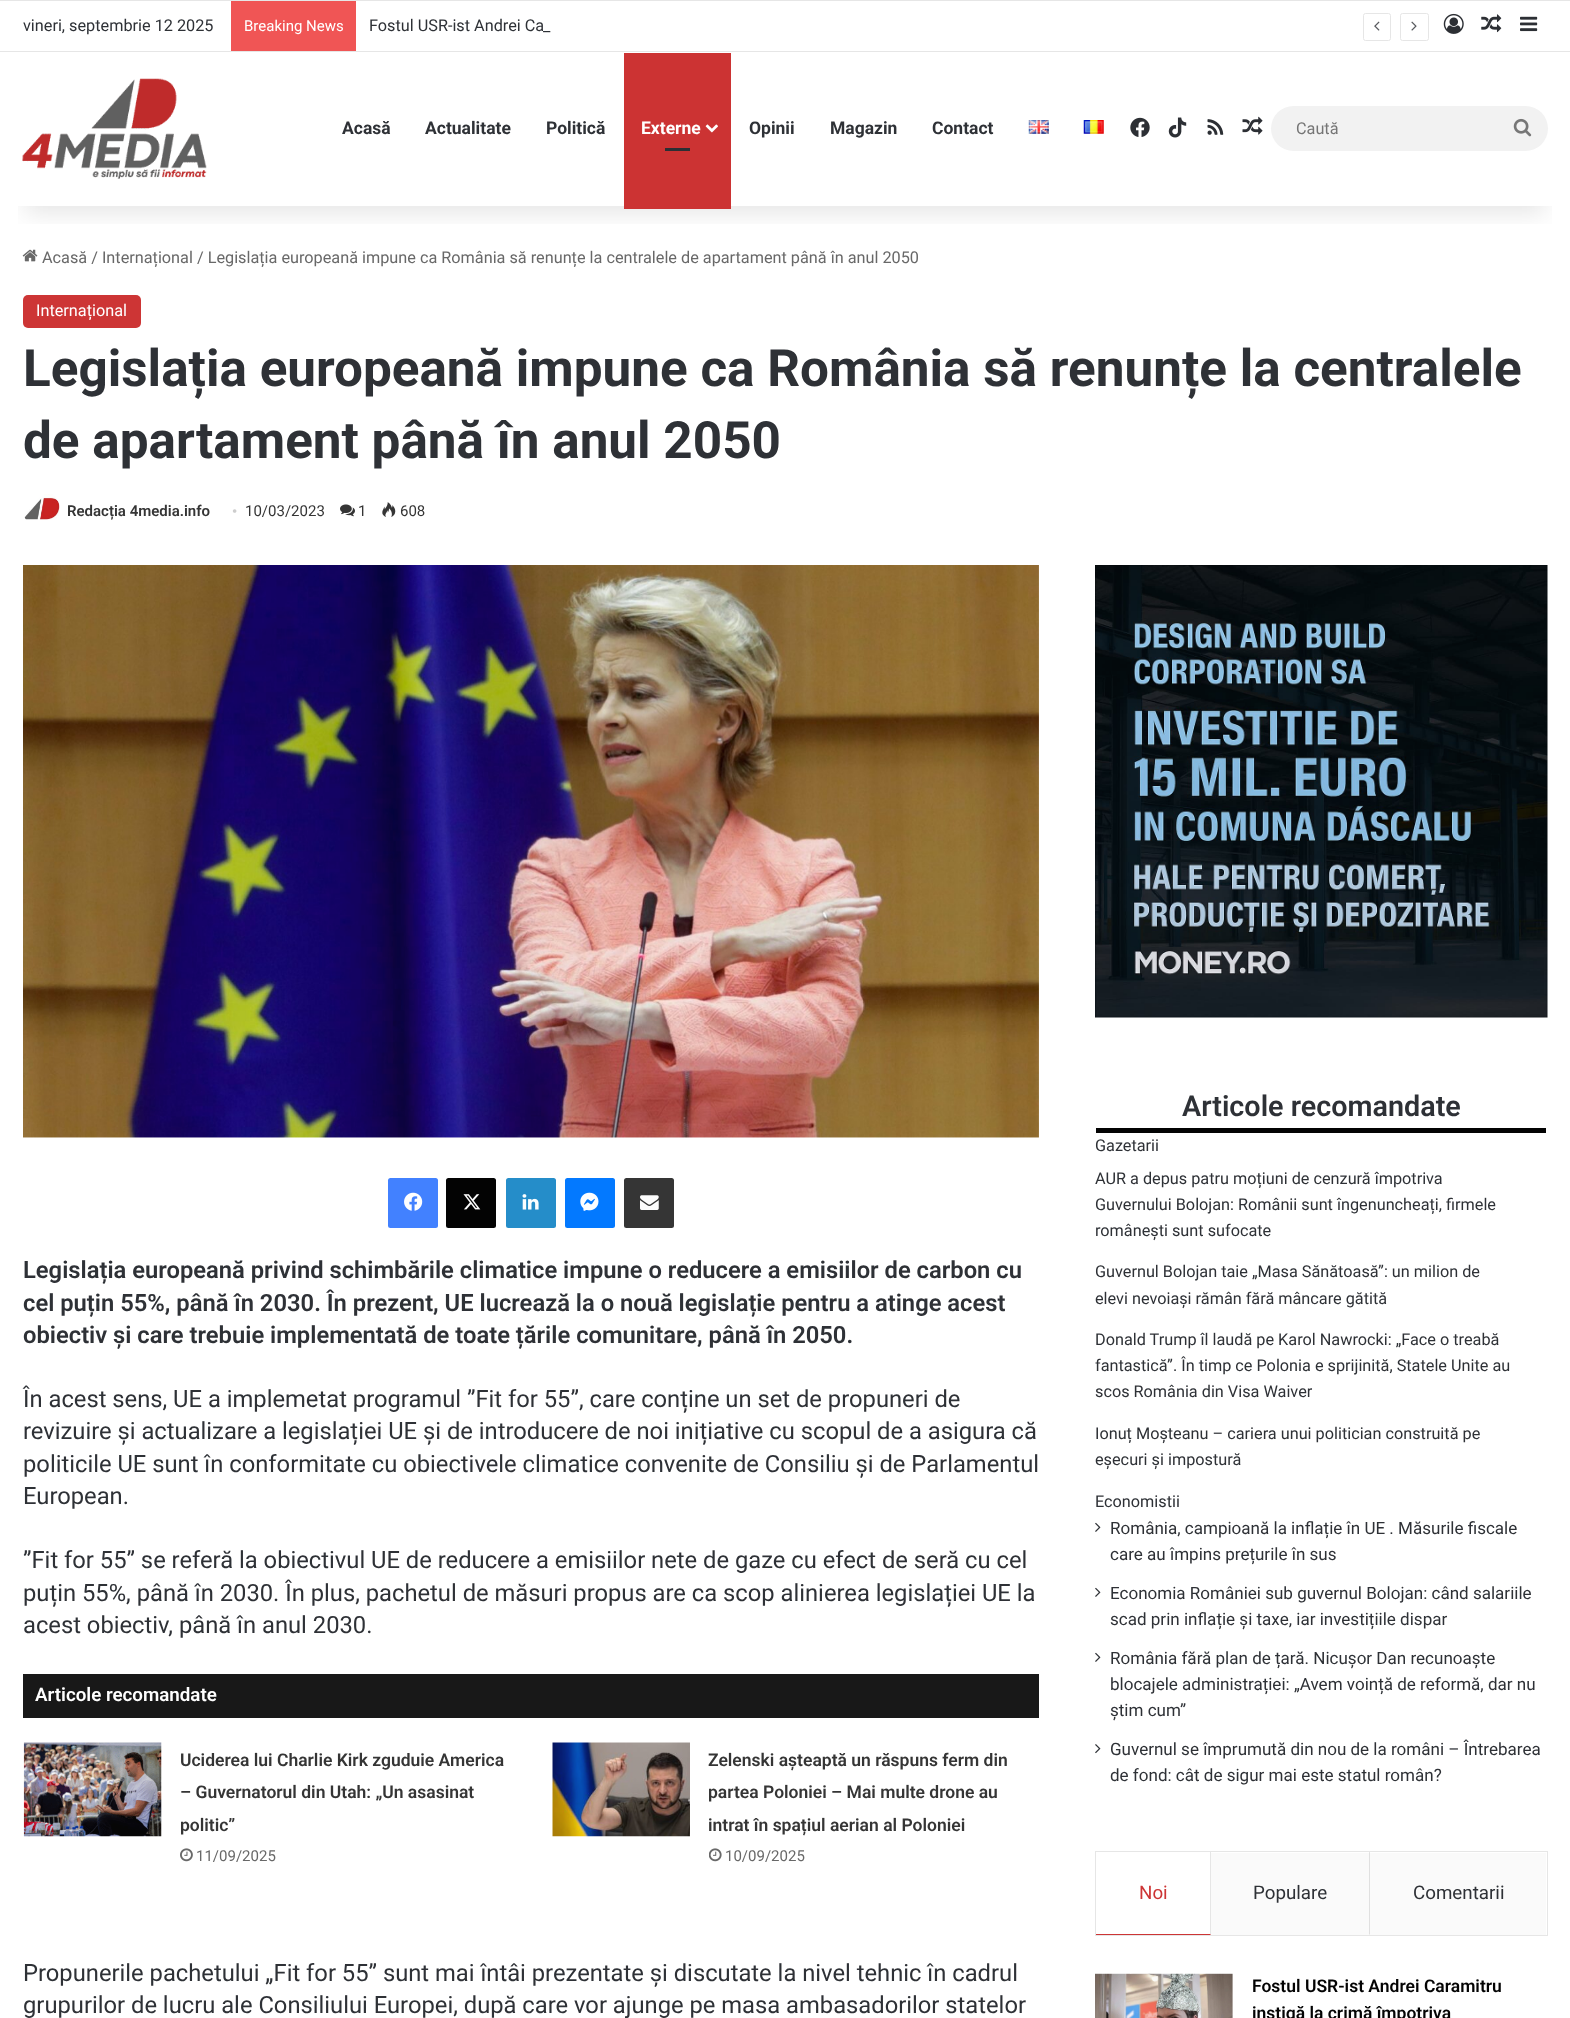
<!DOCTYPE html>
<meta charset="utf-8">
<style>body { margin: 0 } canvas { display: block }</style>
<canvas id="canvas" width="1570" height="2018"></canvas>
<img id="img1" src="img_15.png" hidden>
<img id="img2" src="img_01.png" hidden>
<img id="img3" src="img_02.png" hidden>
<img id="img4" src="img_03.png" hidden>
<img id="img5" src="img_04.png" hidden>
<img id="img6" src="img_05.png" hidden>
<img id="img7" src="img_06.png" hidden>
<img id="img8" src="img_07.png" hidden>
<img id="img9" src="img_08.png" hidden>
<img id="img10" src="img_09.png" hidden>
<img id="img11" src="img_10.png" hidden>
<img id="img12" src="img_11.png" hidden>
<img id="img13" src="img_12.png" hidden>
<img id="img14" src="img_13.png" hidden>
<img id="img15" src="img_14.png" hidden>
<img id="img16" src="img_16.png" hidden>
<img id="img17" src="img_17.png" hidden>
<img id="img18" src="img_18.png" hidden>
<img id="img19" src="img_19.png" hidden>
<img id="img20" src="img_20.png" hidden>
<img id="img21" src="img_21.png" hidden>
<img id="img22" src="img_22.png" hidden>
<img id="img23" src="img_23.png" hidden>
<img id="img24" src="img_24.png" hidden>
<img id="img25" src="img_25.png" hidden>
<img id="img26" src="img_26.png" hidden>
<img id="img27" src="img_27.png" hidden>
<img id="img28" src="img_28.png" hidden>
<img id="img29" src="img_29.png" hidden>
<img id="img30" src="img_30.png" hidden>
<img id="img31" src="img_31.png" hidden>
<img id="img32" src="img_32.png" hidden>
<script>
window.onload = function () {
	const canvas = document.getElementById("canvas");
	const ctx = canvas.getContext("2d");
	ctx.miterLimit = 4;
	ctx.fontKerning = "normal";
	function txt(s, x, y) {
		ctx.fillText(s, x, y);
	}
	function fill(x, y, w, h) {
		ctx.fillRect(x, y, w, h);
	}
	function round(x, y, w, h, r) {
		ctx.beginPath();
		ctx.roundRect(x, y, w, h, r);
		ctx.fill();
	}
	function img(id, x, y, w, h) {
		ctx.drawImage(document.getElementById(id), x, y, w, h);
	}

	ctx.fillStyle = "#FFFFFF";
	fill(0, 0, 1570, 2018);
	img("img1", 22, 249, 16, 13);
	ctx.save();
	ctx.beginPath();
	ctx.rect(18, 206, 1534, 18);
	ctx.clip();
	ctx.fillStyle = "rgba(0, 0, 0, 0.1)";
	ctx.filter = "blur(12.5px)";
	ctx.beginPath();
	ctx.rect(25, 56, 1520, 157);
	ctx.fill();
	ctx.filter = "none";
	ctx.restore();
	ctx.fillStyle = "#E6E6E6";
	fill(0, 0, 1570, 1);
	fill(0, 51, 1570, 1);
	ctx.fillStyle = "#F05555";
	fill(231, 1, 125, 50);
	ctx.beginPath();
	ctx.roundRect(1363.5, 13.5, 27, 27, 2);
	ctx.strokeStyle = "#E6E6E6";
	ctx.stroke();
	img("img2", 1374, 21, 6, 10);
	ctx.beginPath();
	ctx.roundRect(1400.5, 13.5, 28, 27, 2);
	ctx.stroke();
	img("img3", 1411, 21, 6, 10);
	img("img4", 1443, 13, 21, 21);
	img("img5", 1481, 14, 21, 19);
	img("img6", 1520, 16, 18, 16);
	img("img7", 22, 78, 185, 101);
	ctx.fillStyle = "#CC3333";
	fill(624, 53, 107, 156);
	img("img8", 705, 124, 13, 9);
	ctx.fillStyle = "#2C2F34";
	fill(665, 148, 25, 3);
	img("img9", 1028, 120, 21, 14);
	img("img10", 1083, 120, 21, 14);
	img("img11", 1130, 117, 20, 20);
	img("img12", 1168, 117, 19, 21);
	img("img13", 1207, 119, 17, 16);
	img("img14", 1242, 116, 21, 19);
	ctx.fillStyle = "#F2F2F2";
	round(1271, 106, 277, 45, 22.5);
	img("img15", 1513, 118, 19, 19);
	ctx.fillStyle = "#CD3535";
	round(23, 295, 118, 33, 5);
	img("img16", 24, 494, 36, 26);
	img("img17", 340, 504, 15, 13);
	img("img18", 382, 502, 14, 15);
	img("img19", 23, 565, 1016, 573);
	ctx.fillStyle = "#4281FF";
	round(388, 1178, 50, 50, 2.5);
	img("img20", 404, 1192, 19, 19);
	ctx.fillStyle = "#030303";
	round(446, 1178, 50, 50, 2.5);
	img("img21", 463, 1194, 18, 16);
	ctx.fillStyle = "#258DC9";
	round(506, 1178, 50, 50, 2.5);
	img("img22", 522, 1194, 17, 16);
	ctx.fillStyle = "#0379FF";
	round(565, 1178, 50, 50, 2.5);
	img("img23", 580, 1192, 19, 19);
	ctx.fillStyle = "#353535";
	round(624, 1178, 50, 50, 2.5);
	img("img24", 640, 1195, 19, 15);
	ctx.fillStyle = "#181818";
	fill(23, 1674, 1016, 44);
	img("img25", 23, 1742, 139, 95);
	img("img26", 180, 1848, 13, 14);
	img("img27", 552, 1742, 138, 95);
	img("img28", 709, 1848, 13, 14);
	img("img29", 1095, 565, 453, 453);
	ctx.fillStyle = "#030303";
	fill(1096, 1128, 450, 5);
	img("img30", 1095, 1522, 6, 10);
	img("img30", 1095, 1587, 6, 10);
	img("img30", 1095, 1652, 6, 10);
	img("img31", 1095, 1744, 6, 10);
	ctx.strokeRect(1095.5, 1851.5, 452, 84);
	ctx.fillStyle = "#E6E6E6";
	ctx.beginPath();
	ctx.moveTo(1211, 1852);
	ctx.lineTo(1211, 1935);
	ctx.lineTo(1210, 1934);
	ctx.lineTo(1210, 1852);
	ctx.closePath();
	ctx.fill();
	ctx.fillStyle = "#CD3535";
	ctx.beginPath();
	ctx.moveTo(1211, 1935);
	ctx.lineTo(1096, 1935);
	ctx.lineTo(1096, 1934);
	ctx.lineTo(1210, 1934);
	ctx.closePath();
	ctx.fill();
	ctx.fillStyle = "#FAFAFA";
	fill(1211, 1853, 335, 82);
	ctx.fillStyle = "rgba(3, 3, 3, 0.1)";
	ctx.beginPath();
	ctx.moveTo(1370, 1852);
	ctx.lineTo(1370, 1935);
	ctx.lineTo(1369, 1934);
	ctx.lineTo(1369, 1852);
	ctx.closePath();
	ctx.fill();
	img("img32", 1095, 1973, 138, 45);
	ctx.font = "16.25px Roboto";
	ctx.fillStyle = "#2E3136";
	txt("vineri, septembrie 12 2025", 23, 31);
	ctx.font = "15px Roboto";
	ctx.fillStyle = "#FFFFFF";
	txt("Breaking News", 244, 31);
	ctx.font = "16.25px Roboto";
	ctx.fillStyle = "#2E3136";
	txt("Fostul USR-ist Andrei Ca", 369, 31);
	ctx.fillStyle = "#FFFFFF";
	fill(543, 25, 1, 6);
	ctx.fillStyle = "#2E3136";
	txt("_", 543, 31);
	ctx.font = "bold 17.5px Roboto";
	txt("Acasă", 342, 134);
	txt("Actualitate", 425, 134);
	txt("Politică", 546, 134);
	ctx.fillStyle = "#FFFFFF";
	txt("Externe", 641, 134);
	ctx.fillStyle = "#2E3136";
	txt("Opinii", 749, 134);
	txt("Magazin", 830, 134);
	txt("Contact", 932, 134);
	ctx.font = "16.25px Roboto";
	ctx.fillStyle = "#757575";
	txt("Caută", 1296, 134);
	ctx.fillStyle = "#686868";
	txt("Acasă / Internațional / Legislația europeană impune ca România să renunțe la centralele de apartament până în anul 2050", 42, 263);
	ctx.fillStyle = "#FFFFFF";
	txt("Internațional", 36, 316);
	ctx.font = "bold 51.25px Roboto";
	ctx.fillStyle = "#2E3136";
	txt("Legislația europeană impune ca România să renunțe la centralele", 23, 386);
	txt("de apartament până în anul 2050", 23, 458);
	ctx.font = "600 15px Roboto";
	ctx.fillStyle = "#353535";
	txt("Redacția 4media.info", 67, 516);
	ctx.font = "15px Liberation Serif";
	ctx.fillStyle = "#CDCDCD";
	txt("•", 232, 516);
	ctx.font = "15px Roboto";
	ctx.fillStyle = "#353535";
	txt("10/03/2023", 245, 516);
	txt("1", 358, 516);
	txt("608", 400, 516);
	ctx.font = "600 23.75px Roboto";
	ctx.fillStyle = "#2E3136";
	txt("Legislația europeană privind schimbările climatice impune o reducere a emisiilor de carbon cu", 23, 1278);
	txt("cel puțin 55%, până în 2030. În prezent, UE lucrează la o nouă legislație pentru a atinge acest", 23, 1311);
	txt("obiectiv și care trebuie implementată de toate țările comunitare, până în 2050.", 23, 1343);
	ctx.font = "23.75px Roboto";
	txt("În acest sens, UE a implemetat programul ”Fit for 55”, care conține un set de propuneri de", 23, 1407);
	txt("revizuire și actualizare a legislației UE și de introducere de noi inițiative cu scopul de a asigura că", 23, 1439);
	txt("politicile UE sunt în conformitate cu obiectivele climatice convenite de Consiliu și de Parlamentul", 23, 1472);
	txt("European.", 23, 1504);
	txt("”Fit for 55” se referă la obiectivul UE de reducere a emisiilor nete de gaze cu efect de seră cu cel", 23, 1568);
	txt("puțin 55%, până în 2030. În plus, pachetul de măsuri propus are ca scop alinierea legislației UE la", 23, 1601);
	txt("acest obiectiv, până în anul 2030.", 23, 1633);
	ctx.font = "600 18.75px Roboto";
	ctx.fillStyle = "#FFFFFF";
	txt("Articole recomandate", 35, 1701);
	ctx.font = "600 17.5px Roboto";
	ctx.fillStyle = "#353535";
	txt("Uciderea lui Charlie Kirk zguduie America", 180, 1766);
	txt("– Guvernatorul din Utah: „Un asasinat", 180, 1798);
	txt("politic”", 180, 1831);
	ctx.font = "15px Roboto";
	ctx.fillStyle = "#686868";
	txt("11/09/2025", 196, 1861);
	ctx.font = "600 17.5px Roboto";
	ctx.fillStyle = "#353535";
	txt("Zelenski așteaptă un răspuns ferm din", 708, 1766);
	txt("partea Poloniei – Mai multe drone au", 708, 1798);
	txt("intrat în spațiul aerian al Poloniei", 708, 1831);
	ctx.font = "15px Roboto";
	ctx.fillStyle = "#686868";
	txt("10/09/2025", 725, 1861);
	ctx.font = "23.75px Roboto";
	ctx.fillStyle = "#2E3136";
	txt("Propunerile pachetului „Fit for 55” sunt mai întâi prezentate și discutate la nivel tehnic în cadrul", 23, 1981);
	txt("grupurilor de lucru ale Consiliului Europei, după care vor ajunge pe masa ambasadorilor statelor", 23, 2013);
	ctx.font = "600 28.75px Roboto";
	txt("Articole recomandate", 1182, 1116);
	ctx.font = "16.25px Roboto";
	txt("Gazetarii", 1095, 1151);
	txt("AUR a depus patru moțiuni de cenzură împotriva", 1095, 1184);
	txt("Guvernului Bolojan: Românii sunt îngenuncheați, firmele", 1095, 1210);
	txt("românești sunt sufocate", 1095, 1236);
	txt("Guvernul Bolojan taie „Masa Sănătoasă”: un milion de", 1095, 1277);
	txt("elevi nevoiași rămân fără mâncare gătită", 1095, 1304);
	txt("Donald Trump îl laudă pe Karol Nawrocki: „Face o treabă", 1095, 1345);
	txt("fantastică”. În timp ce Polonia e sprijinită, Statele Unite au", 1095, 1371);
	txt("scos România din Visa Waiver", 1095, 1397);
	txt("Ionuț Moșteanu – cariera unui politician construită pe", 1095, 1439);
	txt("eșecuri și impostură", 1095, 1465);
	txt("Economistii", 1095, 1507);
	ctx.font = "17.05px Roboto";
	txt("România, campioană la inflație în UE . Măsurile fiscale", 1110, 1534);
	txt("care au împins prețurile în sus", 1110, 1560);
	txt("Economia României sub guvernul Bolojan: când salariile", 1110, 1599);
	txt("scad prin inflație și taxe, iar investițiile dispar", 1110, 1625);
	txt("România fără plan de țară. Nicușor Dan recunoaște", 1110, 1664);
	txt("blocajele administrației: „Avem voință de reformă, dar nu", 1110, 1690);
	txt("știm cum”", 1110, 1716);
	txt("Guvernul se împrumută din nou de la români – Întrebarea", 1110, 1755);
	txt("de fond: cât de sigur mai este statul român?", 1110, 1781);
	ctx.font = "18.75px Roboto";
	ctx.fillStyle = "#CD3535";
	txt("Noi", 1139, 1899);
	ctx.fillStyle = "#2E3136";
	txt("Populare", 1253, 1899);
	txt("Comentarii", 1413, 1899);
	ctx.font = "600 17.5px Roboto";
	ctx.fillStyle = "#030303";
	txt("Fostul USR-ist Andrei Caramitru", 1252, 1992);
	txt("instigă la crimă împotriva", 1252, 2019);
};
</script>
